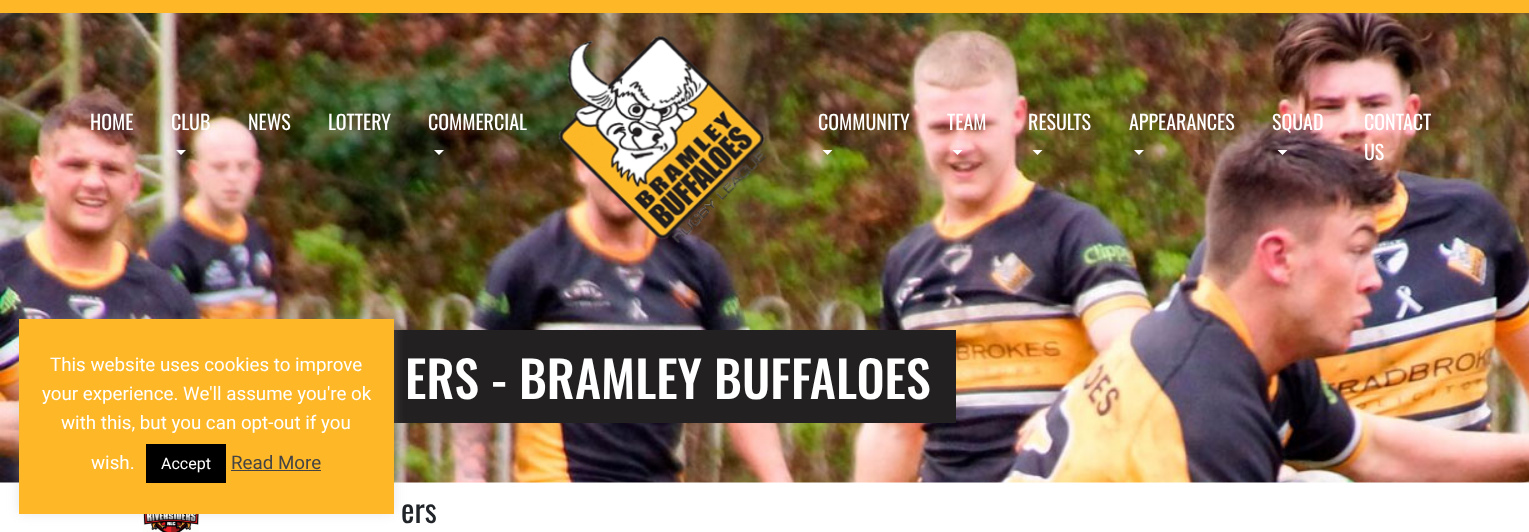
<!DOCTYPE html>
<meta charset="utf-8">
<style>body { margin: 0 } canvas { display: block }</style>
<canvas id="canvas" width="1529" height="532"></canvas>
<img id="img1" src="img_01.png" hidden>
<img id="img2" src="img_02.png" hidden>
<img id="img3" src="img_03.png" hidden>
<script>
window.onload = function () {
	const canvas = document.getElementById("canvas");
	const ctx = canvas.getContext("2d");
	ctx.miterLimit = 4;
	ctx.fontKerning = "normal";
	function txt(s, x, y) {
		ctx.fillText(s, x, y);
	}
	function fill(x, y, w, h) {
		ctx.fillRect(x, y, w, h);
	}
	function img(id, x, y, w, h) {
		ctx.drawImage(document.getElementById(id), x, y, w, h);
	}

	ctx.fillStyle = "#FFFFFF";
	fill(0, 0, 1529, 532);
	img("img1", 0, 13, 1529, 470);
	ctx.fillStyle = "#FDB727";
	fill(0, 0, 1529, 13);
	ctx.fillStyle = "#FFFFFF";
	ctx.beginPath();
	ctx.moveTo(176, 150);
	ctx.lineTo(186, 150);
	ctx.lineTo(181, 155);
	ctx.closePath();
	ctx.fill();
	ctx.beginPath();
	ctx.moveTo(434, 150);
	ctx.lineTo(444, 150);
	ctx.lineTo(439, 155);
	ctx.closePath();
	ctx.fill();
	img("img2", 558, 35, 209, 208);
	ctx.beginPath();
	ctx.moveTo(822.5, 150);
	ctx.lineTo(832.5, 150);
	ctx.lineTo(827.5, 155);
	ctx.closePath();
	ctx.fill();
	ctx.beginPath();
	ctx.moveTo(952.5, 150);
	ctx.lineTo(962.5, 150);
	ctx.lineTo(957.5, 155);
	ctx.closePath();
	ctx.fill();
	ctx.beginPath();
	ctx.moveTo(1032.5, 150);
	ctx.lineTo(1042.5, 150);
	ctx.lineTo(1037.5, 155);
	ctx.closePath();
	ctx.fill();
	ctx.beginPath();
	ctx.moveTo(1134, 150);
	ctx.lineTo(1144, 150);
	ctx.lineTo(1139, 155);
	ctx.closePath();
	ctx.fill();
	ctx.beginPath();
	ctx.moveTo(1277.5, 150);
	ctx.lineTo(1287.5, 150);
	ctx.lineTo(1282.5, 155);
	ctx.closePath();
	ctx.fill();
	ctx.fillStyle = "#232021";
	fill(394, 330, 562, 93);
	img("img3", 143, 514, 56, 18);
	ctx.fillStyle = "rgba(172, 171, 171, 0.3)";
	ctx.filter = "blur(6px)";
	ctx.beginPath();
	ctx.rect(19, 318, 375, 195);
	ctx.fill();
	ctx.filter = "none";
	ctx.fillStyle = "#FDB727";
	fill(19, 319, 375, 195);
	ctx.fillStyle = "#000000";
	fill(146, 444, 80, 39);
	ctx.fillStyle = "#444444";
	fill(231, 470, 90, 1);
	ctx.font = "20px Oswald";
	ctx.fillStyle = "#FFFFFF";
	txt("HOME", 90, 130);
	txt("CLUB", 171, 130);
	txt("NEWS", 248, 130);
	txt("LOTTERY", 328, 130);
	txt("COMMERCIAL", 428, 130);
	txt("COMMUNITY", 818, 130);
	txt("TEAM", 947, 130);
	txt("RESULTS", 1028, 130);
	txt("APPEARANCES", 1129, 130);
	txt("SQUAD", 1272, 130);
	txt("CONTACT", 1364, 130);
	txt("US", 1364, 160);
	ctx.font = "500 50px Oswald";
	txt("ERS - BRAMLEY BUFFALOES", 405, 399);
	ctx.font = "32px Oswald";
	ctx.fillStyle = "#212529";
	txt("ers", 401, 523);
	ctx.font = "18.75px Roboto";
	ctx.fillStyle = "#FFFFFF";
	txt("This website uses cookies to improve", 50, 371);
	txt("your experience. We'll assume you're ok", 42, 400);
	txt("with this, but you can opt-out if you", 61, 429);
	txt("wish.", 91, 469);
	ctx.font = "16px Roboto";
	txt("Accept", 161, 469);
	ctx.font = "18.75px Roboto";
	ctx.fillStyle = "#444444";
	txt("Read More", 231, 469);
};
</script>
